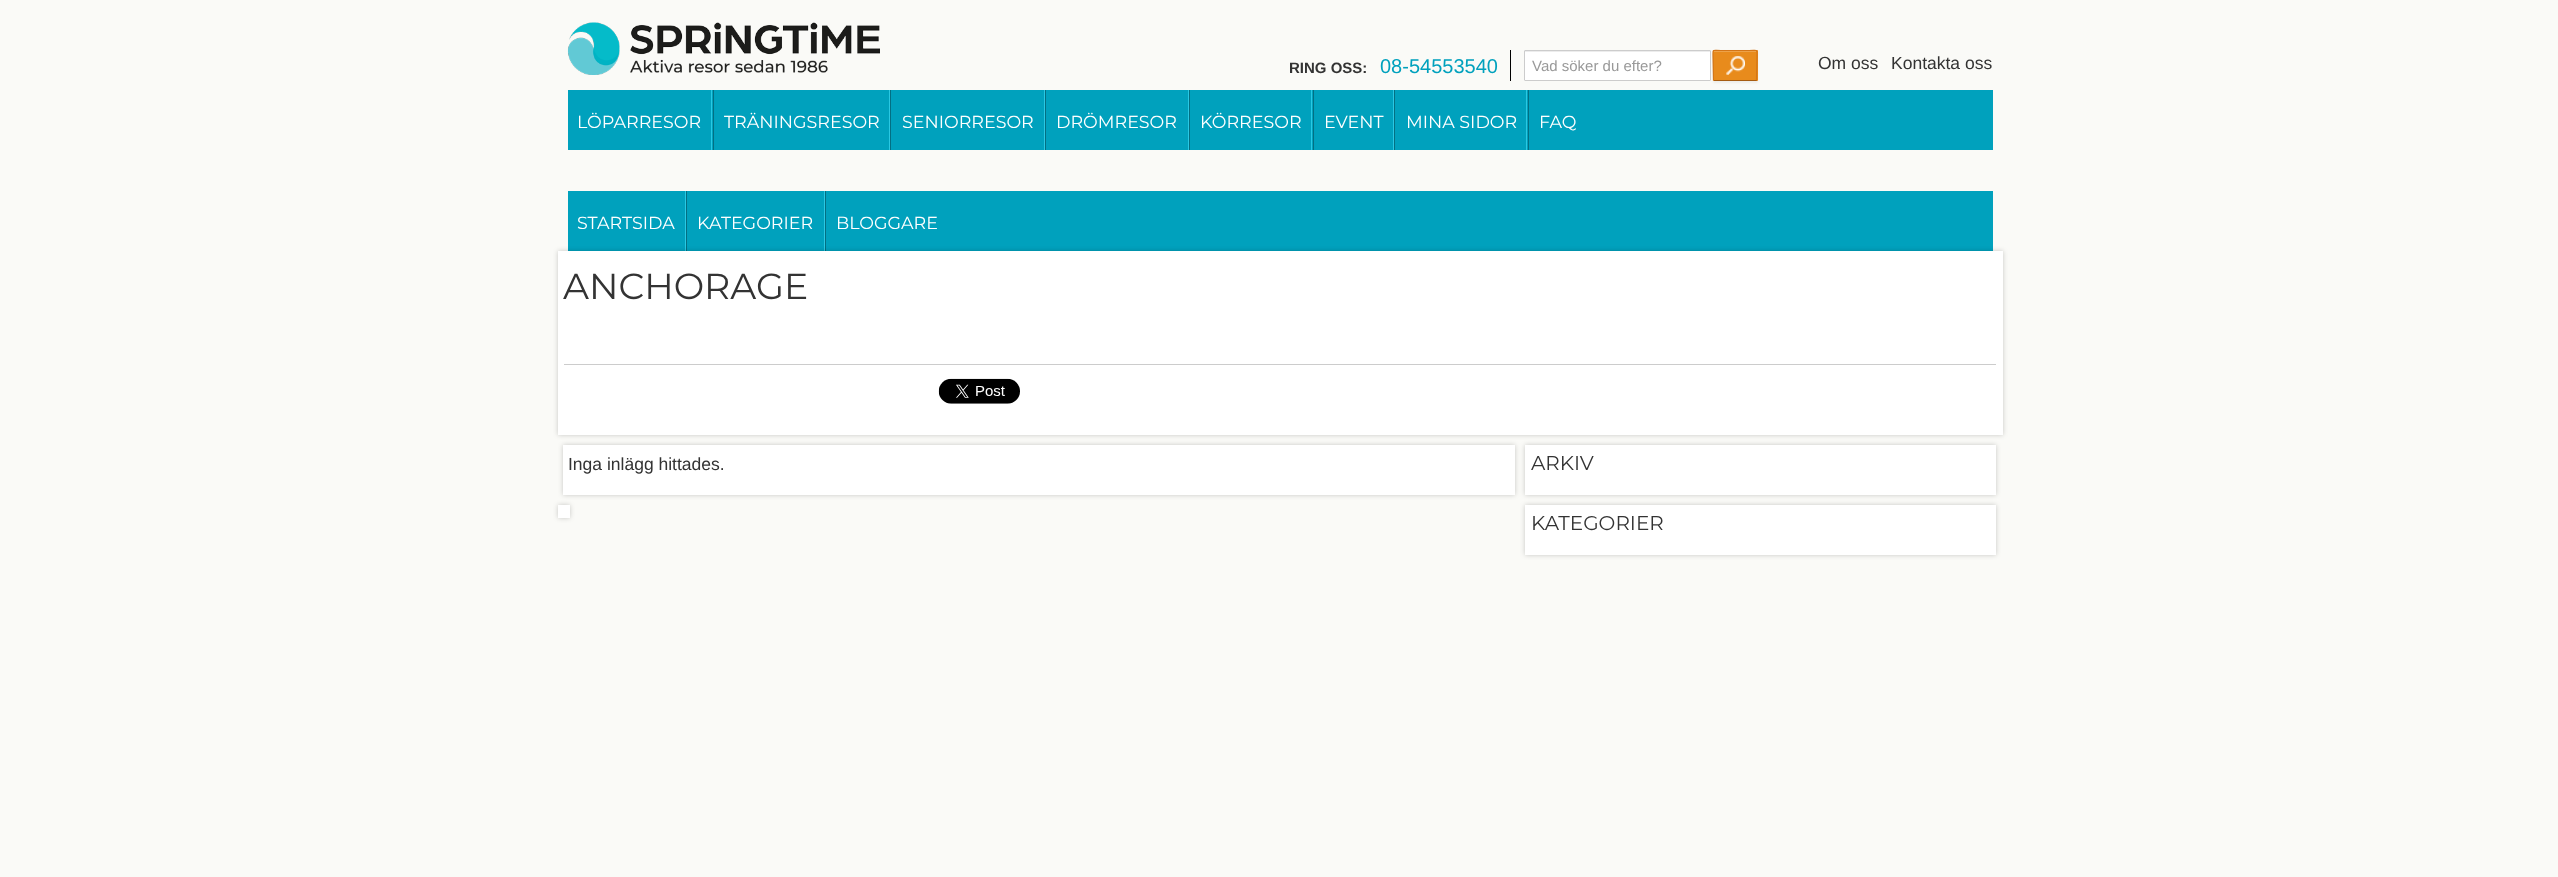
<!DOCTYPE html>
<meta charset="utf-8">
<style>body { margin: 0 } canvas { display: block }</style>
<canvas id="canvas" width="2558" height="877"></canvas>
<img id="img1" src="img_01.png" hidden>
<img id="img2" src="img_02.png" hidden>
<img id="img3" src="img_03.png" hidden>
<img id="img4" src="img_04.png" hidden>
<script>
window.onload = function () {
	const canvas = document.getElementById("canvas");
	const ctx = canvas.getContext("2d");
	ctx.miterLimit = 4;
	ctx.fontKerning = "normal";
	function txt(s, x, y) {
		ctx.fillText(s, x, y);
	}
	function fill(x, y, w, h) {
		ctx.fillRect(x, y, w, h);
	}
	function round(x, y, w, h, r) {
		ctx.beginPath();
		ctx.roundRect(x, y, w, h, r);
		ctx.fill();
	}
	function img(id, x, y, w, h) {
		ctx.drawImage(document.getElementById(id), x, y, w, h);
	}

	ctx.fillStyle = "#FAFAF7";
	fill(0, 0, 2558, 877);
	img("img1", 567, 22, 53, 53);
	img("img2", 630, 22, 250, 51);
	ctx.fillStyle = "#000000";
	fill(1510, 50, 1, 31);
	ctx.fillStyle = "#FFFFFF";
	round(1524, 50, 187, 31, 1);
	ctx.fillStyle = "#ECECEC";
	fill(1525, 51, 185, 1);
	ctx.beginPath();
	ctx.roundRect(1524.5, 50.5, 186, 30, 0.5);
	ctx.strokeStyle = "#CCCCCC";
	ctx.stroke();
	ctx.fillStyle = "rgba(0, 0, 0, 0.05)";
	ctx.filter = "blur(1px)";
	ctx.beginPath();
	ctx.roundRect(1713, 51, 45, 32, 1);
	ctx.fill();
	ctx.filter = "none";
	ctx.fillStyle = "#E88B1C";
	round(1713, 50, 45, 31, 1);
	img("img3", 1726, 56, 19, 19);
	ctx.fillStyle = "#EDA249";
	fill(1714, 51, 42, 1);
	ctx.fillStyle = "#A65D13";
	fill(1714, 80, 43, 1);
	ctx.beginPath();
	ctx.moveTo(1713.5, 80.5);
	ctx.lineTo(1713, 56);
	ctx.bezierCurveTo(1713, 48.5, 1712, 50.5, 1721, 50.5);
	ctx.lineTo(1749, 50.5);
	ctx.bezierCurveTo(1758, 50.5, 1757, 48.5, 1757, 56);
	ctx.lineTo(1756.5, 80.5);
	ctx.strokeStyle = "#D47618";
	ctx.lineWidth = 1.2;
	ctx.stroke();
	ctx.fillStyle = "#00A1BD";
	fill(568, 90, 1425, 60);
	ctx.fillStyle = "#2AC8E3";
	fill(711, 90, 1, 60);
	fill(889, 90, 1, 60);
	ctx.fillStyle = "#036F82";
	fill(713, 90, 1, 60);
	ctx.fillStyle = "#2AC8E3";
	fill(1044, 90, 1, 60);
	ctx.fillStyle = "#036F82";
	fill(890, 90, 1, 60);
	ctx.fillStyle = "#2AC8E3";
	fill(1188, 90, 1, 60);
	ctx.fillStyle = "#036F82";
	fill(1045, 90, 1, 60);
	ctx.fillStyle = "#2AC8E3";
	fill(1311, 90, 1, 60);
	ctx.fillStyle = "#036F82";
	fill(1189, 90, 1, 60);
	ctx.fillStyle = "#2AC8E3";
	fill(1393, 90, 1, 60);
	ctx.fillStyle = "#036F82";
	fill(1313, 90, 1, 60);
	ctx.fillStyle = "#2AC8E3";
	fill(1526, 90, 1, 60);
	ctx.fillStyle = "#036F82";
	fill(1394, 90, 1, 60);
	fill(1528, 90, 1, 60);
	ctx.fillStyle = "#00A1BD";
	fill(568, 191, 1425, 60);
	ctx.fillStyle = "#2AC8E3";
	fill(685, 191, 1, 60);
	fill(824, 191, 1, 60);
	ctx.fillStyle = "#036F82";
	fill(686, 191, 1, 60);
	fill(825, 191, 1, 60);
	ctx.fillStyle = "rgba(0, 0, 0, 0.2)";
	ctx.filter = "blur(2.5px)";
	ctx.beginPath();
	ctx.rect(558, 251, 1445, 184);
	ctx.fill();
	ctx.filter = "none";
	ctx.fillStyle = "#FFFFFF";
	fill(558, 251, 1445, 184);
	ctx.fillStyle = "#CCCCCC";
	fill(564, 364, 1432, 1);
	img("img4", 938, 378, 82, 26);
	ctx.fillStyle = "rgba(0, 0, 0, 0.2)";
	ctx.filter = "blur(2.5px)";
	ctx.beginPath();
	ctx.rect(563, 445, 952, 50);
	ctx.fill();
	ctx.filter = "none";
	ctx.fillStyle = "#FFFFFF";
	fill(563, 445, 952, 50);
	ctx.fillStyle = "rgba(0, 0, 0, 0.2)";
	ctx.filter = "blur(2.5px)";
	ctx.beginPath();
	ctx.rect(558, 505, 12, 13);
	ctx.fill();
	ctx.filter = "none";
	ctx.fillStyle = "#FFFFFF";
	fill(558, 505, 12, 13);
	ctx.fillStyle = "rgba(0, 0, 0, 0.2)";
	ctx.filter = "blur(2.5px)";
	ctx.beginPath();
	ctx.rect(1525, 445, 471, 50);
	ctx.fill();
	ctx.filter = "none";
	ctx.fillStyle = "#FFFFFF";
	fill(1525, 445, 471, 50);
	ctx.fillStyle = "rgba(0, 0, 0, 0.2)";
	ctx.filter = "blur(2.5px)";
	ctx.beginPath();
	ctx.rect(1525, 505, 471, 50);
	ctx.fill();
	ctx.filter = "none";
	ctx.fillStyle = "#FFFFFF";
	fill(1525, 505, 471, 50);
	ctx.font = "bold 15px Liberation Sans";
	ctx.fillStyle = "#333333";
	txt("RING OSS:", 1289, 73);
	ctx.font = "20px Liberation Sans";
	ctx.fillStyle = "#00A1BD";
	txt("08-54553540", 1380, 73);
	ctx.font = "15px Liberation Sans";
	ctx.fillStyle = "#999999";
	txt("Vad söker du efter?", 1532, 71);
	ctx.font = "17.5px Liberation Sans";
	ctx.fillStyle = "#333333";
	txt("Om oss", 1818, 69);
	txt("Kontakta oss", 1891, 69);
	ctx.font = "17.5px Montserrat";
	ctx.fillStyle = "#FFFFFF";
	txt("LÖPARRESOR", 577, 128);
	txt("TRÄNINGSRESOR", 724, 128);
	txt("SENIORRESOR", 902, 128);
	txt("DRÖMRESOR", 1056, 128);
	txt("KÖRRESOR", 1200, 128);
	txt("EVENT", 1324, 128);
	txt("MINA SIDOR", 1406, 128);
	txt("FAQ", 1539, 128);
	txt("STARTSIDA", 577, 229);
	txt("KATEGORIER", 697, 229);
	txt("BLOGGARE", 836, 229);
	ctx.font = "36.25px Montserrat";
	ctx.fillStyle = "#333333";
	txt("ANCHORAGE", 563, 299);
	ctx.font = "17.5px Liberation Sans";
	txt("Inga inlägg hittades.", 568, 470);
	ctx.font = "20px Montserrat";
	txt("ARKIV", 1531, 470);
	txt("KATEGORIER", 1531, 530);
};
</script>
